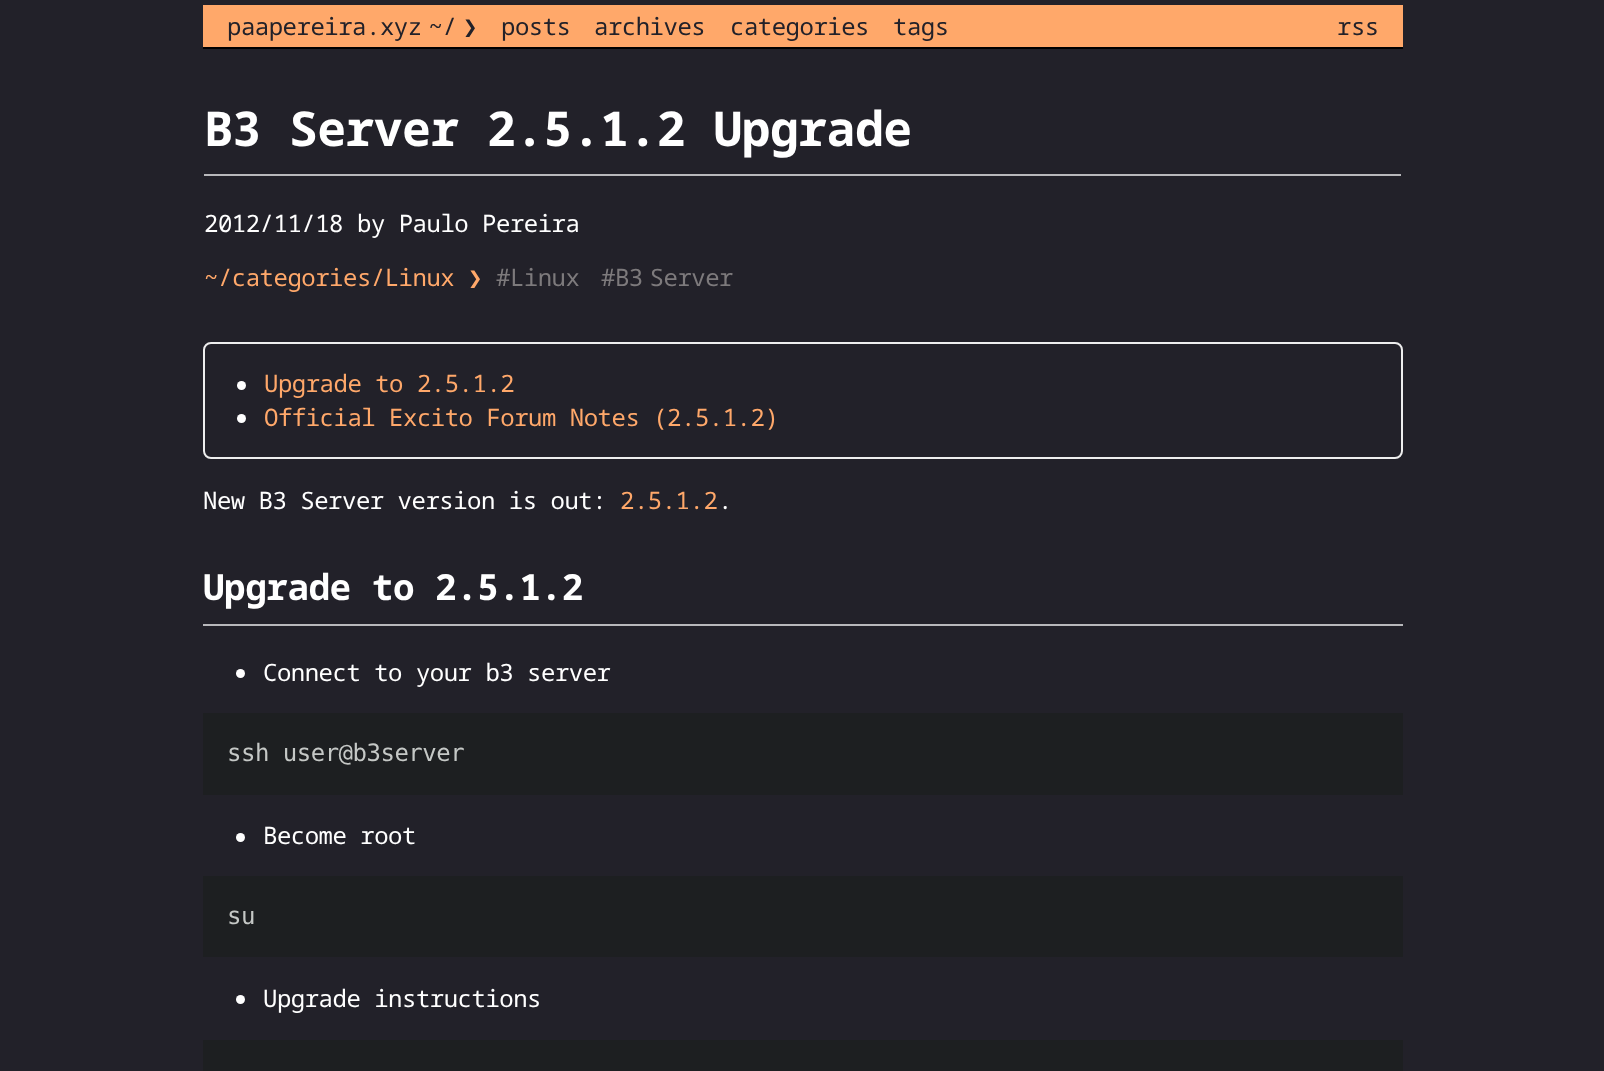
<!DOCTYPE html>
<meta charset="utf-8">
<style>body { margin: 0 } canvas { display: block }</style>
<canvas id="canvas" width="1604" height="1071"></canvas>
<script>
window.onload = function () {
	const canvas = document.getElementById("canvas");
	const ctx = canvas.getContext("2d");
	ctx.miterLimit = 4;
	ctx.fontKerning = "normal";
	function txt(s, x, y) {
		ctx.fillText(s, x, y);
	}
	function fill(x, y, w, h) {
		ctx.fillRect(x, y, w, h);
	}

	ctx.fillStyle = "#222129";
	fill(0, 0, 1604, 1071);
	ctx.fillStyle = "#FFA86A";
	fill(203, 5, 1200, 42);
	ctx.fillStyle = "#000000";
	fill(203, 47, 1200, 2);
	ctx.fillStyle = "#B8B8BB";
	fill(204, 174, 1197, 2);
	ctx.beginPath();
	ctx.roundRect(204, 343, 1198, 115, 7);
	ctx.strokeStyle = "#EEEEEE";
	ctx.lineWidth = 2;
	ctx.stroke();
	ctx.fillStyle = "#FFFFFF";
	ctx.beginPath();
	ctx.arc(241.5, 385.5, 4.5, 0, Math.PI * 2);
	ctx.fill();
	ctx.beginPath();
	ctx.arc(241.5, 418.5, 4.5, 0, Math.PI * 2);
	ctx.fill();
	ctx.fillStyle = "#B8B8BB";
	fill(203, 624, 1200, 2);
	ctx.fillStyle = "#FFFFFF";
	ctx.beginPath();
	ctx.arc(240.5, 673.5, 4.5, 0, Math.PI * 2);
	ctx.fill();
	ctx.fillStyle = "#1D1F21";
	fill(203, 713, 1200, 82);
	ctx.fillStyle = "#FFFFFF";
	ctx.beginPath();
	ctx.arc(240.5, 837.5, 4.5, 0, Math.PI * 2);
	ctx.fill();
	ctx.fillStyle = "#1D1F21";
	fill(203, 876, 1200, 81);
	ctx.fillStyle = "#FFFFFF";
	ctx.beginPath();
	ctx.arc(240.5, 999.5, 4.5, 0, Math.PI * 2);
	ctx.fill();
	ctx.fillStyle = "#1D1F21";
	fill(203, 1040, 1200, 31);
	ctx.letterSpacing = "-0.5px";
	ctx.wordSpacing = "-7px";
	ctx.font = "24px Noto Sans Mono";
	ctx.fillStyle = "#222129";
	txt("paapereira.xyz ~/", 227, 35);
	ctx.wordSpacing = "0px";
	ctx.font = "24px DejaVu Sans Mono";
	txt("❯", 463, 35);
	ctx.font = "24px Noto Sans Mono";
	txt("posts", 501, 35);
	txt("archives", 594, 35);
	txt("categories", 730, 35);
	txt("tags", 893, 35);
	txt("rss", 1337, 35);
	ctx.font = "bold 48px Noto Sans Mono";
	ctx.fillStyle = "#FFFFFF";
	txt("B3 Server 2.5.1.2 Upgrade", 204, 146);
	ctx.font = "24px Noto Sans Mono";
	txt("2012/11/18", 204, 232);
	txt("by Paulo Pereira", 357, 232);
	ctx.fillStyle = "#FFA86A";
	txt("~/categories/Linux", 204, 286);
	ctx.font = "24px DejaVu Sans Mono";
	txt("❯", 468, 286);
	ctx.font = "24px Noto Sans Mono";
	ctx.fillStyle = "#7D7A7C";
	txt("#Linux", 496, 286);
	ctx.wordSpacing = "-7px";
	txt("#B3 Server", 601, 286);
	ctx.wordSpacing = "0px";
	ctx.fillStyle = "#FFA86A";
	txt("Upgrade to 2.5.1.2", 264, 392);
	txt("Official Excito Forum Notes (2.5.1.2)", 264, 426);
	ctx.fillStyle = "#FFFFFF";
	txt("New B3 Server version is out:", 203, 509);
	ctx.fillStyle = "#FFA86A";
	txt("2.5.1.2", 620, 509);
	ctx.fillStyle = "#FFFFFF";
	txt(".", 718, 509);
	ctx.font = "bold 36px Noto Sans Mono";
	txt("Upgrade to 2.5.1.2", 203, 600);
	ctx.font = "24px Noto Sans Mono";
	txt("Connect to your b3 server", 263, 681);
	ctx.font = "24px DejaVu Sans Mono";
	ctx.fillStyle = "#C5C8C6";
	txt("ssh user@b3server", 227, 761);
	ctx.font = "24px Noto Sans Mono";
	ctx.fillStyle = "#FFFFFF";
	txt("Become root", 263, 844);
	ctx.font = "24px DejaVu Sans Mono";
	ctx.fillStyle = "#C5C8C6";
	txt("su", 227, 924);
	ctx.font = "24px Noto Sans Mono";
	ctx.fillStyle = "#FFFFFF";
	txt("Upgrade instructions", 263, 1007);
};
</script>
